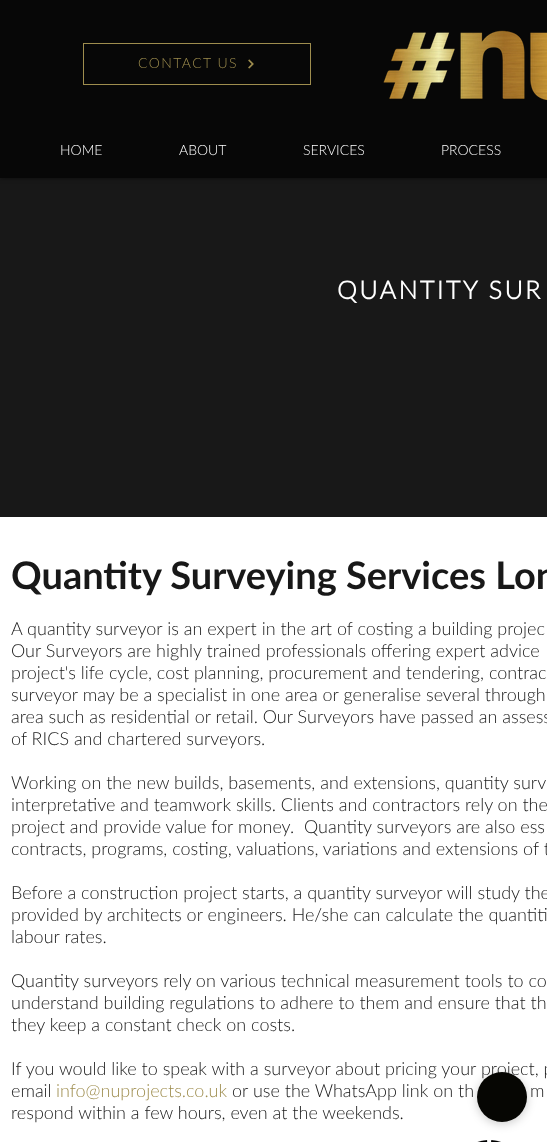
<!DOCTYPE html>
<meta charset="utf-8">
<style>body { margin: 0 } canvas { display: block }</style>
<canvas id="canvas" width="547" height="1142"></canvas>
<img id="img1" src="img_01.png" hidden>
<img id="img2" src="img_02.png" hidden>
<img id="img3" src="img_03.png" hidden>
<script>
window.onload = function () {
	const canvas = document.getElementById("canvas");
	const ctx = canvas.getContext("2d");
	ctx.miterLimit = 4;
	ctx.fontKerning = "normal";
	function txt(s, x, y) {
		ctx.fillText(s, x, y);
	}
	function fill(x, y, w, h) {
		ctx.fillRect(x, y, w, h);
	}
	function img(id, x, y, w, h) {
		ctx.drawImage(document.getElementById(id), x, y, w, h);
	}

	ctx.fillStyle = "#181818";
	fill(0, 0, 547, 1142);
	ctx.fillStyle = "rgba(0, 0, 0, 0.5)";
	ctx.filter = "blur(2.5px)";
	ctx.beginPath();
	ctx.rect(0, 0, 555, 178);
	ctx.fill();
	ctx.filter = "none";
	ctx.fillStyle = "#070707";
	fill(0, 0, 547, 178);
	ctx.strokeStyle = "#9E8D4E";
	ctx.strokeRect(83.5, 43.5, 227, 41);
	img("img1", 248, 59, 6, 10);
	img("img2", 383, 30, 164, 71);
	ctx.fillStyle = "#FFFFFF";
	fill(0, 517, 547, 625);
	img("img3", 477, 1140, 24, 2);
	ctx.fillStyle = "rgba(0, 0, 0, 0.2)";
	ctx.filter = "blur(5px)";
	ctx.beginPath();
	ctx.roundRect(477, 1074, 50, 50, 25);
	ctx.fill();
	ctx.filter = "none";
	ctx.letterSpacing = "1.4px";
	ctx.font = "300 14px Lato";
	ctx.fillStyle = "#9E8D4E";
	txt("CONTACT US", 138, 68);
	ctx.letterSpacing = "0px";
	ctx.fillStyle = "#FFFFFF";
	txt("HOME", 60, 155);
	txt("ABOUT", 179, 155);
	txt("SERVICES", 303, 155);
	txt("PROCESS", 441, 155);
	ctx.letterSpacing = "2.5px";
	ctx.font = "bold 25px Lato";
	txt("QUANTITY SUR", 337, 299);
	ctx.letterSpacing = "0px";
	ctx.font = "bold 38px 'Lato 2'";
	ctx.fillStyle = "#181818";
	txt("Quantity Surveying Services Lon", 11, 589);
	ctx.font = "300 18px Lato";
	txt("A quantity surveyor is an expert in the art of costing a building projec", 11, 635);
	txt("Our Surveyors are highly trained professionals offering expert advice", 11, 657);
	txt("project's life cycle, cost planning, procurement and tendering, contrac", 11, 679);
	txt("surveyor may be a specialist in one area or generalise several through", 11, 701);
	txt("area such as residential or retail. Our Surveyors have passed an assess", 11, 723);
	txt("of RICS and chartered surveyors.", 11, 745);
	txt("Working on the new builds, basements, and extensions, quantity surv", 11, 789);
	txt("interpretative and teamwork skills. Clients and contractors rely on the", 11, 811);
	txt("project and provide value for money.  Quantity surveyors are also ess", 11, 833);
	txt("contracts, programs, costing, valuations, variations and extensions of t", 11, 855);
	txt("Before a construction project starts, a quantity surveyor will study the", 11, 899);
	txt("provided by architects or engineers. He/she can calculate the quantiti", 11, 921);
	txt("labour rates.", 11, 943);
	txt("Quantity surveyors rely on various technical measurement tools to co", 11, 987);
	txt("understand building regulations to adhere to them and ensure that th", 11, 1009);
	txt("they keep a constant check on costs.", 11, 1031);
	txt("If you would like to speak with a surveyor about pricing your project, p", 11, 1075);
	txt("email", 11, 1097);
	ctx.fillStyle = "#9E8D4E";
	txt("info@nuprojects.co.uk", 56, 1097);
	ctx.fillStyle = "#181818";
	txt("or use the WhatsApp link on th", 232, 1097);
	txt("m", 530, 1097);
	txt("respond within a few hours, even at the weekends.", 11, 1119);
	ctx.fillStyle = "#060603";
	ctx.beginPath();
	ctx.arc(502, 1097, 25, 0, Math.PI * 2);
	ctx.fill();
};
</script>
